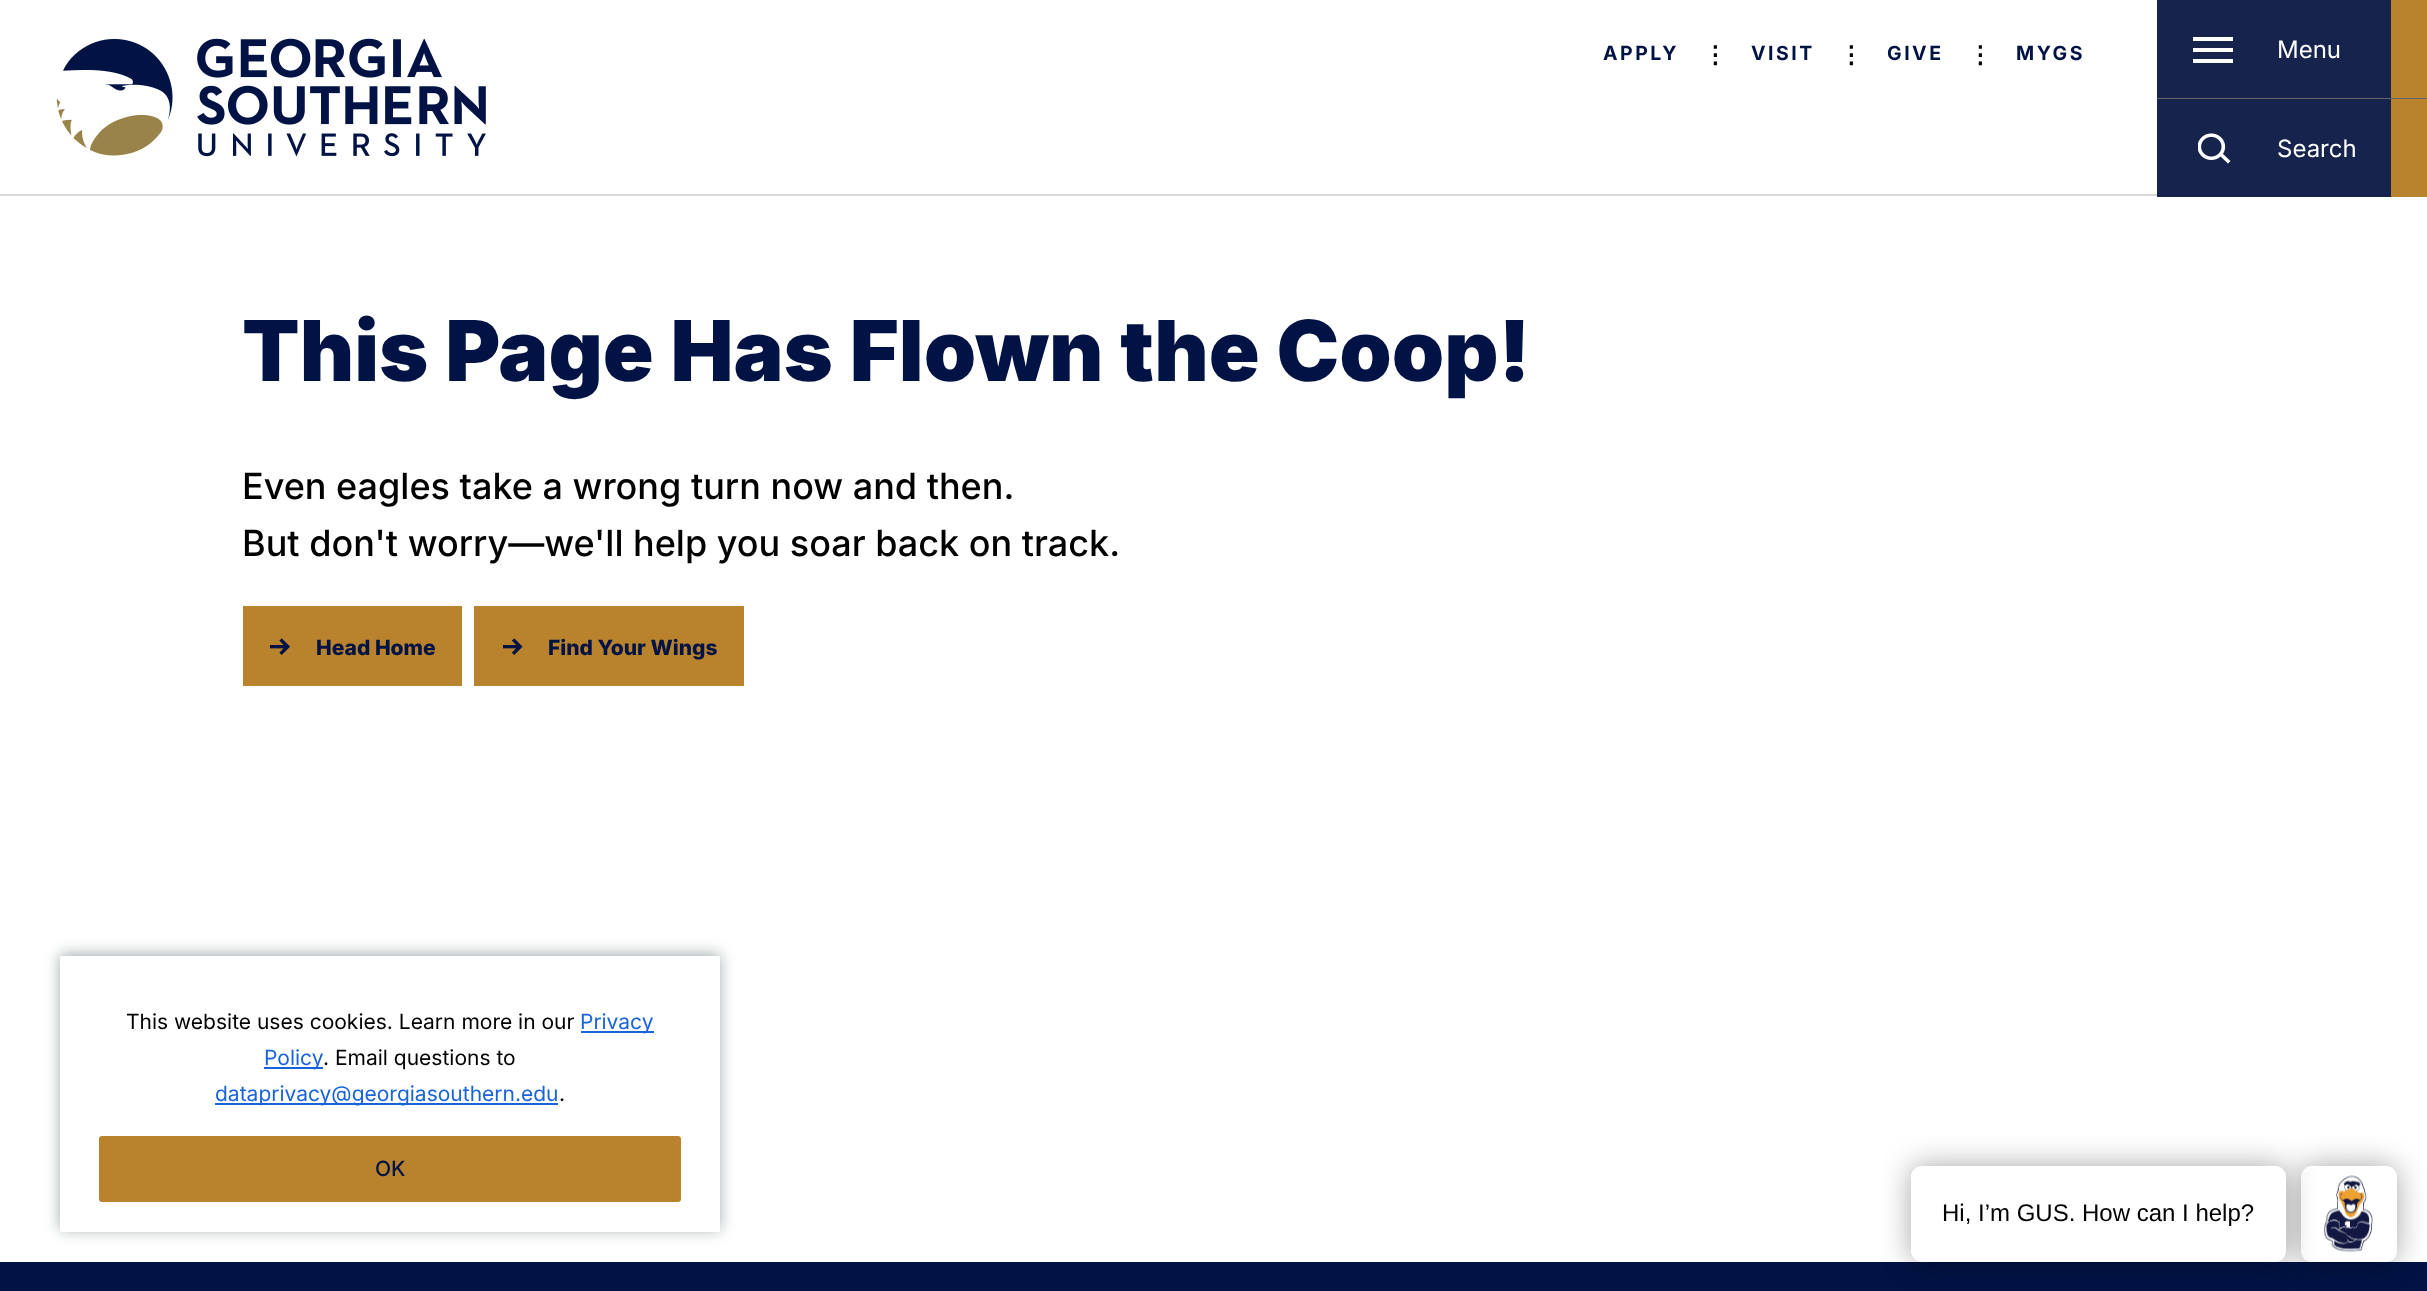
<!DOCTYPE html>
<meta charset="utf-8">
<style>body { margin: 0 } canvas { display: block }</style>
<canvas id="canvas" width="2427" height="1291"></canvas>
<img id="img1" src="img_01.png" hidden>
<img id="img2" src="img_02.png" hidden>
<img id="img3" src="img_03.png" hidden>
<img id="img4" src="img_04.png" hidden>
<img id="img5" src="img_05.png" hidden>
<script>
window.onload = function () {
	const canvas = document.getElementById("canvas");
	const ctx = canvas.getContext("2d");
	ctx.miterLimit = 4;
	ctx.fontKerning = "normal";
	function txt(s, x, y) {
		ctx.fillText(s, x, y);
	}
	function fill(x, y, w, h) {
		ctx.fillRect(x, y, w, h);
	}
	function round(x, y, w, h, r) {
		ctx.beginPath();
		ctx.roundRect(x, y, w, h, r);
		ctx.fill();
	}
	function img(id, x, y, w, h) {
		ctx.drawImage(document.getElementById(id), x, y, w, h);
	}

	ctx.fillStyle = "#FFFFFF";
	fill(0, 0, 2427, 1291);
	ctx.fillStyle = "#D9D9D9";
	fill(0, 194, 2157, 2);
	img("img1", 56, 38, 430, 119);
	ctx.fillStyle = "#666666";
	fill(2157, 98, 270, 1);
	ctx.fillStyle = "#16234D";
	fill(2157, 0, 234, 98);
	ctx.fillStyle = "#B9832D";
	fill(2391, 0, 36, 98);
	ctx.fillStyle = "#FFFFFF";
	ctx.beginPath();
	ctx.moveTo(2233, 37);
	ctx.lineTo(2193, 37);
	ctx.lineTo(2193, 41);
	ctx.lineTo(2233, 41);
	ctx.closePath();
	ctx.moveTo(2233, 48);
	ctx.lineTo(2193, 48);
	ctx.lineTo(2193, 52);
	ctx.lineTo(2233, 52);
	ctx.closePath();
	ctx.moveTo(2233, 59);
	ctx.lineTo(2193, 59);
	ctx.lineTo(2193, 63);
	ctx.lineTo(2233, 63);
	ctx.closePath();
	ctx.fill();
	ctx.fillStyle = "#16234D";
	fill(2157, 99, 234, 98);
	ctx.fillStyle = "#B9832D";
	fill(2391, 99, 36, 98);
	img("img2", 2198, 133, 33, 31);
	fill(243, 606, 219, 80);
	img("img3", 270, 638, 20, 17);
	fill(474, 606, 270, 80);
	img("img4", 503, 638, 20, 17);
	ctx.fillStyle = "#A5ACAF";
	ctx.filter = "blur(7.5px)";
	ctx.beginPath();
	ctx.rect(60, 954, 660, 276);
	ctx.fill();
	ctx.filter = "none";
	ctx.fillStyle = "#FFFFFF";
	fill(60, 956, 660, 276);
	ctx.fillStyle = "#1863DC";
	fill(581, 1031, 73, 2);
	fill(264, 1067, 59, 2);
	fill(215, 1103, 343, 2);
	ctx.fillStyle = "#B9832D";
	ctx.beginPath();
	ctx.roundRect(100.5, 1137.5, 579, 63, 1.5);
	ctx.fill();
	ctx.strokeStyle = "#B9832D";
	ctx.lineWidth = 3;
	ctx.stroke();
	ctx.fillStyle = "#001344";
	fill(0, 1262, 2427, 29);
	ctx.fillStyle = "rgba(0, 0, 0, 0.35)";
	ctx.filter = "blur(15px)";
	ctx.beginPath();
	ctx.roundRect(2301, 1166, 96, 96, 11);
	ctx.fill();
	ctx.filter = "none";
	ctx.fillStyle = "#FFFFFF";
	round(2301, 1166, 96, 96, 11);
	img("img5", 2324, 1175, 49, 77);
	ctx.fillStyle = "rgba(0, 0, 0, 0.35)";
	ctx.filter = "blur(15px)";
	ctx.beginPath();
	ctx.roundRect(1911, 1166, 375, 96, 11);
	ctx.fill();
	ctx.filter = "none";
	ctx.fillStyle = "#FFFFFF";
	round(1911, 1166, 375, 96, 11);
	ctx.letterSpacing = "2.5px";
	ctx.font = "bold 19.5px Inter";
	ctx.fillStyle = "#001344";
	txt("APPLY", 1603, 60);
	ctx.letterSpacing = "0px";
	ctx.font = "bold 24px DejaVu Sans";
	ctx.fillStyle = "#000000";
	txt("⋮", 1703, 63);
	ctx.letterSpacing = "2.5px";
	ctx.font = "bold 19.5px Inter";
	ctx.fillStyle = "#001344";
	txt("VISIT", 1751, 60);
	ctx.letterSpacing = "0px";
	ctx.font = "bold 24px DejaVu Sans";
	ctx.fillStyle = "#000000";
	txt("⋮", 1839, 63);
	ctx.letterSpacing = "2.5px";
	ctx.font = "bold 19.5px Inter";
	ctx.fillStyle = "#001344";
	txt("GIVE", 1887, 60);
	ctx.letterSpacing = "0px";
	ctx.font = "bold 24px DejaVu Sans";
	ctx.fillStyle = "#000000";
	txt("⋮", 1968, 63);
	ctx.letterSpacing = "2.5px";
	ctx.font = "bold 19.5px Inter";
	ctx.fillStyle = "#001344";
	txt("MYGS", 2016, 60);
	ctx.letterSpacing = "0px";
	ctx.font = "24px Inter";
	ctx.fillStyle = "#FFFFFF";
	txt("Menu", 2277, 58);
	txt("Search", 2277, 157);
	ctx.font = "900 84px Inter";
	ctx.fillStyle = "#001344";
	txt("This Page Has Flown the Coop!", 242, 381);
	ctx.font = "500 36px Inter";
	ctx.fillStyle = "#000000";
	txt("Even eagles take a wrong turn now and then.", 242, 499);
	txt("But don't worry—we'll help you soar back on track.", 242, 556);
	ctx.font = "800 21px Inter";
	ctx.fillStyle = "#001344";
	txt("Head Home", 316, 655);
	txt("Find Your Wings", 548, 655);
	ctx.font = "21px Inter";
	ctx.fillStyle = "#000000";
	txt("This website uses cookies. Learn more in our", 126, 1029);
	ctx.fillStyle = "#1863DC";
	txt("Privacy", 580, 1029);
	txt("Policy", 264, 1065);
	ctx.fillStyle = "#000000";
	txt(". Email questions to", 323, 1065);
	ctx.fillStyle = "#1863DC";
	txt("dataprivacy@georgiasouthern.edu", 215, 1101);
	ctx.fillStyle = "#000000";
	txt(".", 559, 1101);
	ctx.font = "500 21px Inter";
	ctx.fillStyle = "#001344";
	txt("OK", 375, 1176);
	ctx.font = "24px Liberation Sans";
	ctx.fillStyle = "#000000";
	txt("Hi, I’m GUS. How can I help?", 1942, 1221);
};
</script>
